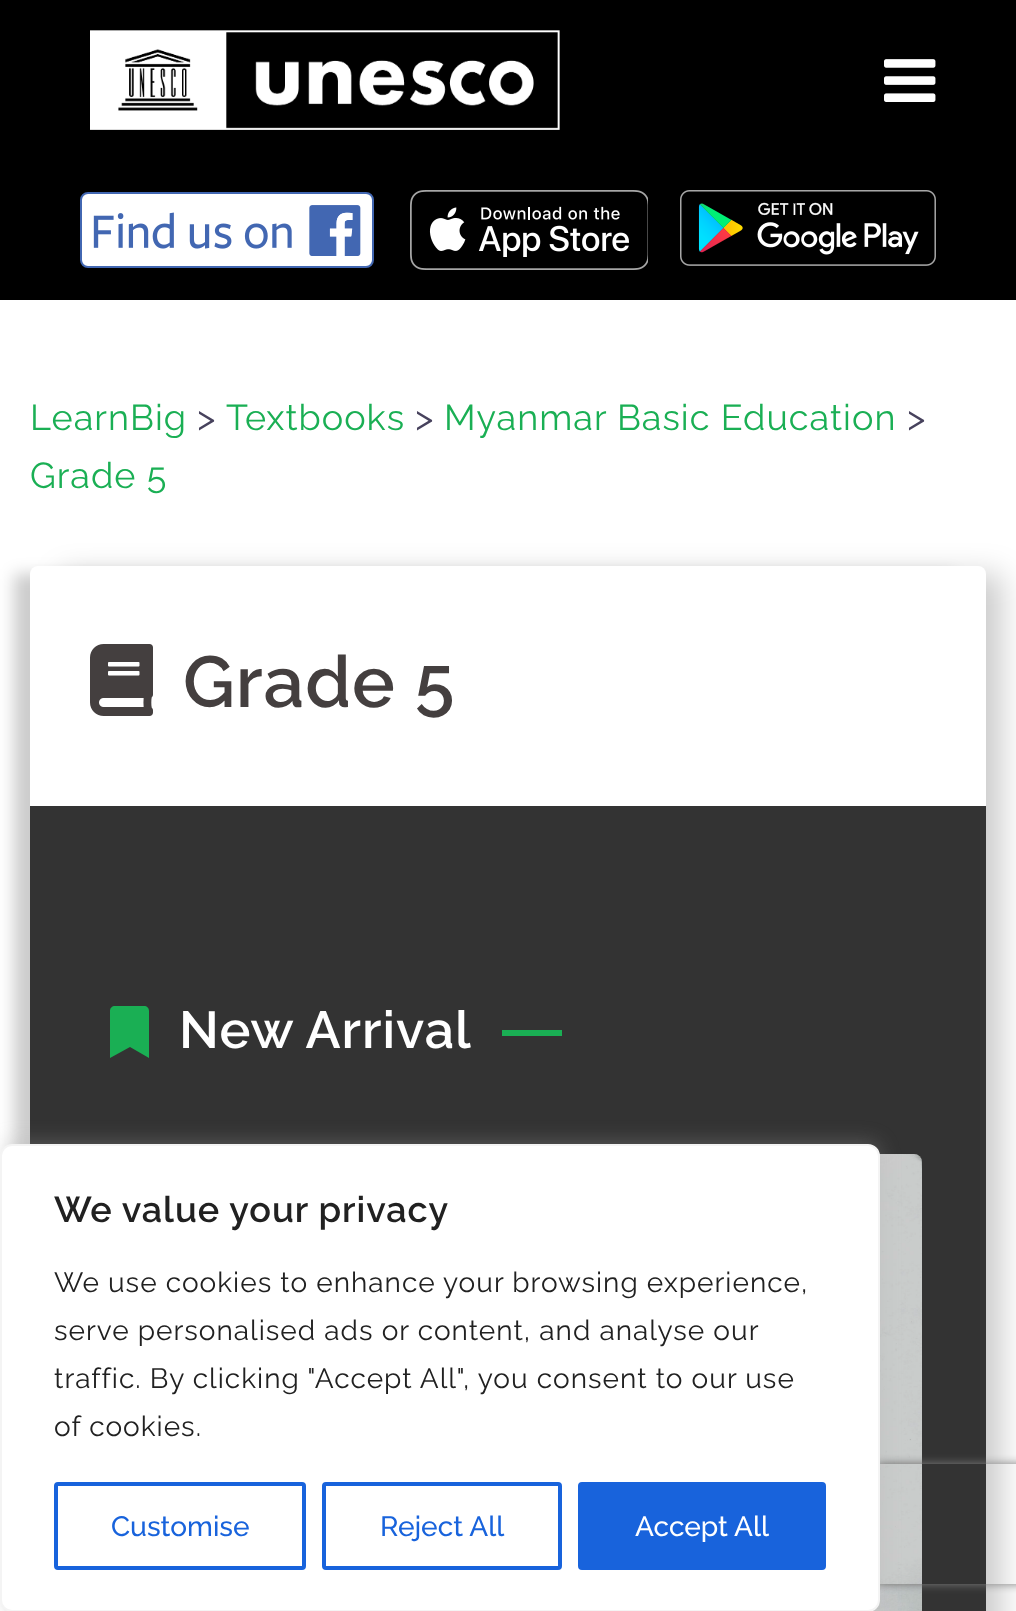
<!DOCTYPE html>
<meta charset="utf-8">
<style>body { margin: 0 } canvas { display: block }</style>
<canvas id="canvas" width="1016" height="1611"></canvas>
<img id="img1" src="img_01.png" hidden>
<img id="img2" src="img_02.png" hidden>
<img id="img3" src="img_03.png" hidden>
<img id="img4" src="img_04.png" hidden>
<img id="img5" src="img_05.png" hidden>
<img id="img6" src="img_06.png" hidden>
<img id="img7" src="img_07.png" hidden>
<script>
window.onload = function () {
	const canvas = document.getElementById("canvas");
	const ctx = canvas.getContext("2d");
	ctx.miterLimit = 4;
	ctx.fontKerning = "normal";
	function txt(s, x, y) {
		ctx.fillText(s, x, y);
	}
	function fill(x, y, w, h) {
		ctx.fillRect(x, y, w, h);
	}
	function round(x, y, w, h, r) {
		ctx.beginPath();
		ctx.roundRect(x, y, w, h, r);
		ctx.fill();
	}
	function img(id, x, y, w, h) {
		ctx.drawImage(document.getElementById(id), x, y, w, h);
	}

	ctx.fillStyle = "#FFFFFF";
	fill(0, 0, 1016, 1611);
	ctx.fillStyle = "#000000";
	fill(0, 0, 1016, 300);
	ctx.fillStyle = "#FFFFFF";
	ctx.beginPath();
	ctx.roundRect(81, 193, 292, 74, 7);
	ctx.fill();
	ctx.strokeStyle = "#4267B2";
	ctx.lineWidth = 2;
	ctx.stroke();
	img("img1", 93, 205, 268, 51);
	img("img2", 410, 190, 238, 80);
	img("img3", 680, 190, 256, 76);
	img("img4", 90, 30, 470, 100);
	img("img5", 884, 59, 52, 43);
	ctx.fillStyle = "rgba(0, 0, 0, 0.2)";
	ctx.filter = "blur(8px)";
	ctx.beginPath();
	ctx.rect(14, 574, 940, 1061);
	ctx.fill();
	ctx.filter = "none";
	ctx.filter = "blur(15px)";
	ctx.beginPath();
	ctx.rect(62, 574, 940, 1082);
	ctx.fill();
	ctx.filter = "none";
	ctx.fillStyle = "#FFFFFF";
	round(30, 566, 956, 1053, 8);
	img("img6", 90, 644, 63, 72);
	ctx.fillStyle = "#333333";
	fill(30, 806, 956, 805);
	ctx.fillStyle = "#1AAF54";
	ctx.beginPath();
	ctx.moveTo(110, 1058);
	ctx.lineTo(110, 1011);
	ctx.bezierCurveTo(110, 1008, 112, 1006, 115, 1006);
	ctx.lineTo(144, 1006);
	ctx.bezierCurveTo(147, 1006, 149, 1008, 149, 1011);
	ctx.lineTo(149, 1058);
	ctx.lineTo(130, 1047);
	ctx.closePath();
	ctx.fill();
	fill(502, 1030, 60, 6);
	img("img7", 872, 1154, 50, 457);
	ctx.save();
	ctx.beginPath();
	ctx.moveTo(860, 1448);
	ctx.lineTo(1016, 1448);
	ctx.lineTo(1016, 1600);
	ctx.lineTo(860, 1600);
	ctx.closePath();
	ctx.moveTo(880, 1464);
	ctx.lineTo(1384, 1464);
	ctx.bezierCurveTo(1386, 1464, 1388, 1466, 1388, 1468);
	ctx.lineTo(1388, 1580);
	ctx.bezierCurveTo(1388, 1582, 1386, 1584, 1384, 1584);
	ctx.lineTo(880, 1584);
	ctx.bezierCurveTo(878, 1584, 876, 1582, 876, 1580);
	ctx.lineTo(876, 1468);
	ctx.bezierCurveTo(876, 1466, 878, 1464, 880, 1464);
	ctx.closePath();
	ctx.clip("evenodd");
	ctx.fillStyle = "#808080";
	ctx.filter = "blur(5px)";
	ctx.beginPath();
	ctx.roundRect(876, 1464, 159, 120, 4);
	ctx.fill();
	ctx.filter = "none";
	ctx.restore();
	ctx.fillStyle = "rgba(0, 0, 0, 0.2)";
	round(572, 1154, 350, 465, 8);
	ctx.fillStyle = "rgba(172, 171, 171, 0.3)";
	ctx.filter = "blur(10px)";
	ctx.beginPath();
	ctx.roundRect(0, 1142, 880, 468, 12);
	ctx.fill();
	ctx.filter = "none";
	ctx.fillStyle = "#FFFFFF";
	ctx.beginPath();
	ctx.roundRect(1, 1145, 878, 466, 11);
	ctx.fill();
	ctx.strokeStyle = "#F4F4F4";
	ctx.stroke();
	ctx.beginPath();
	ctx.roundRect(56, 1484, 248, 84, 2);
	ctx.strokeStyle = "#1863DC";
	ctx.lineWidth = 4;
	ctx.stroke();
	ctx.beginPath();
	ctx.roundRect(324, 1484, 236, 84, 2);
	ctx.stroke();
	ctx.fillStyle = "#1863DC";
	ctx.beginPath();
	ctx.roundRect(580, 1484, 244, 84, 2);
	ctx.fill();
	ctx.stroke();
	ctx.letterSpacing = "1px";
	ctx.font = "36px Raleway";
	ctx.fillStyle = "#1AAF54";
	txt("LearnBig", 30, 430);
	ctx.fillStyle = "#47425D";
	txt(">", 197, 430);
	ctx.fillStyle = "#1AAF54";
	txt("Textbooks", 226, 430);
	ctx.fillStyle = "#47425D";
	txt(">", 415, 430);
	ctx.fillStyle = "#1AAF54";
	txt("Myanmar Basic Education", 444, 430);
	ctx.fillStyle = "#47425D";
	txt(">", 907, 430);
	ctx.fillStyle = "#1AAF54";
	txt("Grade 5", 30, 488);
	ctx.font = "600 72px Raleway";
	ctx.fillStyle = "#443F3F";
	txt("Grade 5", 183, 707);
	ctx.font = "600 52px Raleway";
	ctx.fillStyle = "#FFFFFF";
	txt("New Arrival", 179, 1048);
	ctx.font = "600 36px Raleway";
	ctx.fillStyle = "#212121";
	txt("We value your privacy", 54, 1222);
	ctx.font = "28px Raleway";
	txt("We use cookies to enhance your browsing experience,", 54, 1292);
	txt("serve personalised ads or content, and analyse our", 54, 1340);
	txt("traffic. By clicking \"Accept All\", you consent to our use", 54, 1388);
	txt("of cookies.", 54, 1436);
	ctx.letterSpacing = "0px";
	ctx.font = "500 28px Raleway";
	ctx.fillStyle = "#1863DC";
	txt("Customise", 111, 1536);
	txt("Reject All", 380, 1536);
	ctx.fillStyle = "#FFFFFF";
	txt("Accept All", 635, 1536);
};
</script>
